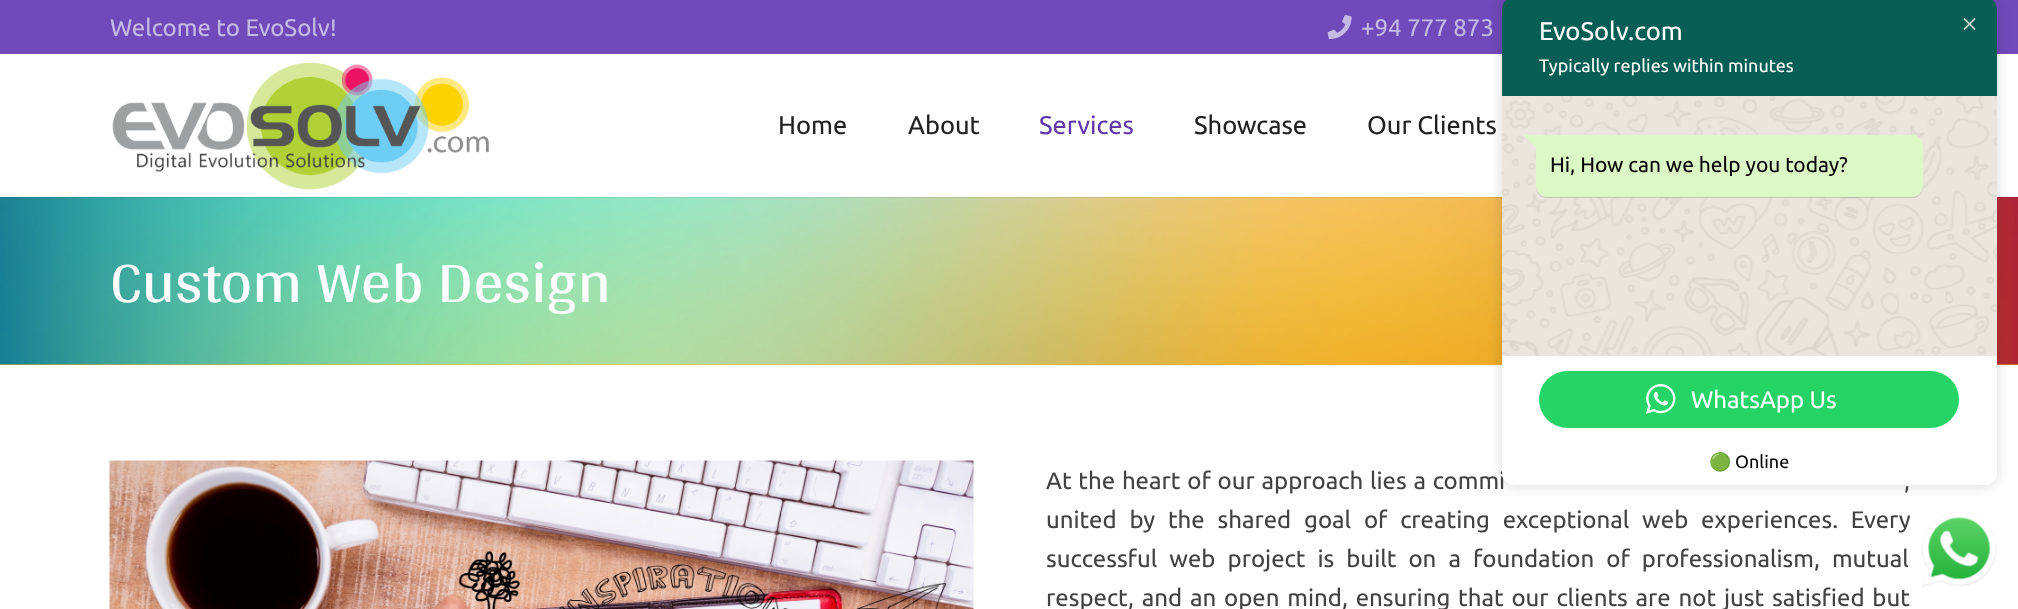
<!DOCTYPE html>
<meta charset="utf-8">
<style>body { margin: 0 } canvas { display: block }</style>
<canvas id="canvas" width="2018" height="609"></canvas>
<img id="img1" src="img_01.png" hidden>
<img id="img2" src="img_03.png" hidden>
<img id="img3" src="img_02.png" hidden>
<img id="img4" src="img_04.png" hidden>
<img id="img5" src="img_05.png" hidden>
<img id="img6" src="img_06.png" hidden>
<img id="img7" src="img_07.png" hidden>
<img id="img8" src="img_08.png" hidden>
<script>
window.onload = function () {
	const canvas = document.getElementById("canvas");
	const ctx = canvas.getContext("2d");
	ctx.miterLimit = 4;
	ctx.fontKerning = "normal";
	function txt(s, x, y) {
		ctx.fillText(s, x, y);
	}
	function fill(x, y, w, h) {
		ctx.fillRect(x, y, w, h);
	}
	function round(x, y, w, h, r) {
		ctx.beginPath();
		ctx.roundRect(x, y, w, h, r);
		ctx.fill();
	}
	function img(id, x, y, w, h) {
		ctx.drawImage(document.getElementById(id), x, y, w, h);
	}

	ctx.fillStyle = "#FFFFFF";
	fill(0, 0, 2018, 609);
	ctx.fillStyle = "#7049BA";
	fill(0, 0, 2018, 54);
	img("img1", 1327, 15, 25, 24);
	ctx.fillStyle = "#FFB03A";
	fill(0, 364, 2018, 1);
	img("img2", 0, 197, 2018, 168);
	ctx.fillStyle = "rgba(0, 0, 0, 0.08)";
	fill(0, 197, 2018, 1);
	img("img3", 112, 62, 377, 128);
	img("img4", 109, 460, 865, 149);
	ctx.fillStyle = "rgba(0, 0, 0, 0.14)";
	ctx.filter = "blur(7px)";
	ctx.beginPath();
	ctx.roundRect(1502, -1, 495, 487, 12);
	ctx.fill();
	ctx.filter = "none";
	ctx.fillStyle = "#075E54";
	ctx.beginPath();
	ctx.moveTo(1514, -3);
	ctx.lineTo(1985, -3);
	ctx.bezierCurveTo(1991.5, -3, 1997, 2.5, 1997, 9);
	ctx.lineTo(1997, 98);
	ctx.lineTo(1502, 98);
	ctx.lineTo(1502, 9);
	ctx.bezierCurveTo(1502, 2.5, 1507.5, -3, 1514, -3);
	ctx.closePath();
	ctx.fill();
	ctx.fillStyle = "#ECE5DD";
	fill(1502, 96, 495, 260);
	img("img5", 1501, 96, 496, 260);
	ctx.fillStyle = "rgba(0, 0, 0, 0.14)";
	ctx.filter = "blur(0.5px)";
	ctx.beginPath();
	ctx.roundRect(1536, 137, 387, 61, 11);
	ctx.fill();
	ctx.filter = "none";
	ctx.fillStyle = "#DCF8C6";
	ctx.beginPath();
	ctx.roundRect(1536, 135, 387, 62, [0, 11, 11, 11]);
	ctx.fill();
	ctx.beginPath();
	ctx.moveTo(1524, 135);
	ctx.lineTo(1537, 135);
	ctx.lineTo(1537, 148);
	ctx.closePath();
	ctx.fill();
	ctx.fillStyle = "#FFFFFF";
	fill(1502, 356, 495, 84);
	ctx.fillStyle = "#25D366";
	round(1539, 371, 420, 57, 28.5);
	img("img6", 1646, 384, 30, 30);
	img("img7", 1963, 18, 13, 12);
	img("img8", 1921, 511, 76, 76);
	ctx.font = "24px Ubuntu";
	ctx.fillStyle = "#C8B8E5";
	txt("Welcome to EvoSolv!", 110, 36);
	txt("+94 777 873", 1361, 36);
	ctx.font = "25.5px Ubuntu";
	ctx.fillStyle = "#212121";
	txt("Home", 778, 134);
	txt("About", 908, 134);
	ctx.fillStyle = "#6039A8";
	txt("Services", 1039, 134);
	ctx.fillStyle = "#212121";
	txt("Showcase", 1194, 134);
	txt("Our Clients", 1367, 134);
	ctx.font = "60px Arya";
	ctx.fillStyle = "#FFFFFF";
	txt("Custom Web Design", 110, 302);
	ctx.wordSpacing = "1.25px";
	ctx.font = "24px Ubuntu";
	ctx.fillStyle = "#424242";
	txt("At the heart of our approach lies a commi", 1046, 489);
	txt(",", 1904, 489);
	ctx.wordSpacing = "7.25px";
	txt("united by the shared goal of creating exceptional web experiences. Every", 1046, 528);
	ctx.wordSpacing = "6.5px";
	txt("successful web project is built on a foundation of professionalism, mutual", 1046, 567);
	ctx.wordSpacing = "2.25px";
	txt("respect, and an open mind, ensuring that our clients are not just satisfied but", 1046, 606);
	ctx.wordSpacing = "0px";
	ctx.font = "25.5px Ubuntu";
	ctx.fillStyle = "#FFFFFF";
	txt("EvoSolv.com", 1539, 40);
	ctx.font = "18px Ubuntu";
	txt("Typically replies within minutes", 1539, 72);
	ctx.font = "21px Ubuntu";
	ctx.fillStyle = "#000000";
	txt("Hi, How can we help you today?", 1550, 172);
	ctx.font = "24px Ubuntu";
	ctx.fillStyle = "#FFFFFF";
	txt("WhatsApp Us", 1691, 408);
	ctx.beginPath();
	ctx.roundRect(1502, 440, 495, 45, [0, 0, 12, 12]);
	ctx.fill();
	ctx.font = "18px Noto Color Emoji";
	ctx.fillStyle = "#000000";
	txt("🟢", 1709, 468);
	ctx.font = "18px Ubuntu";
	txt("Online", 1735, 468);
};
</script>
